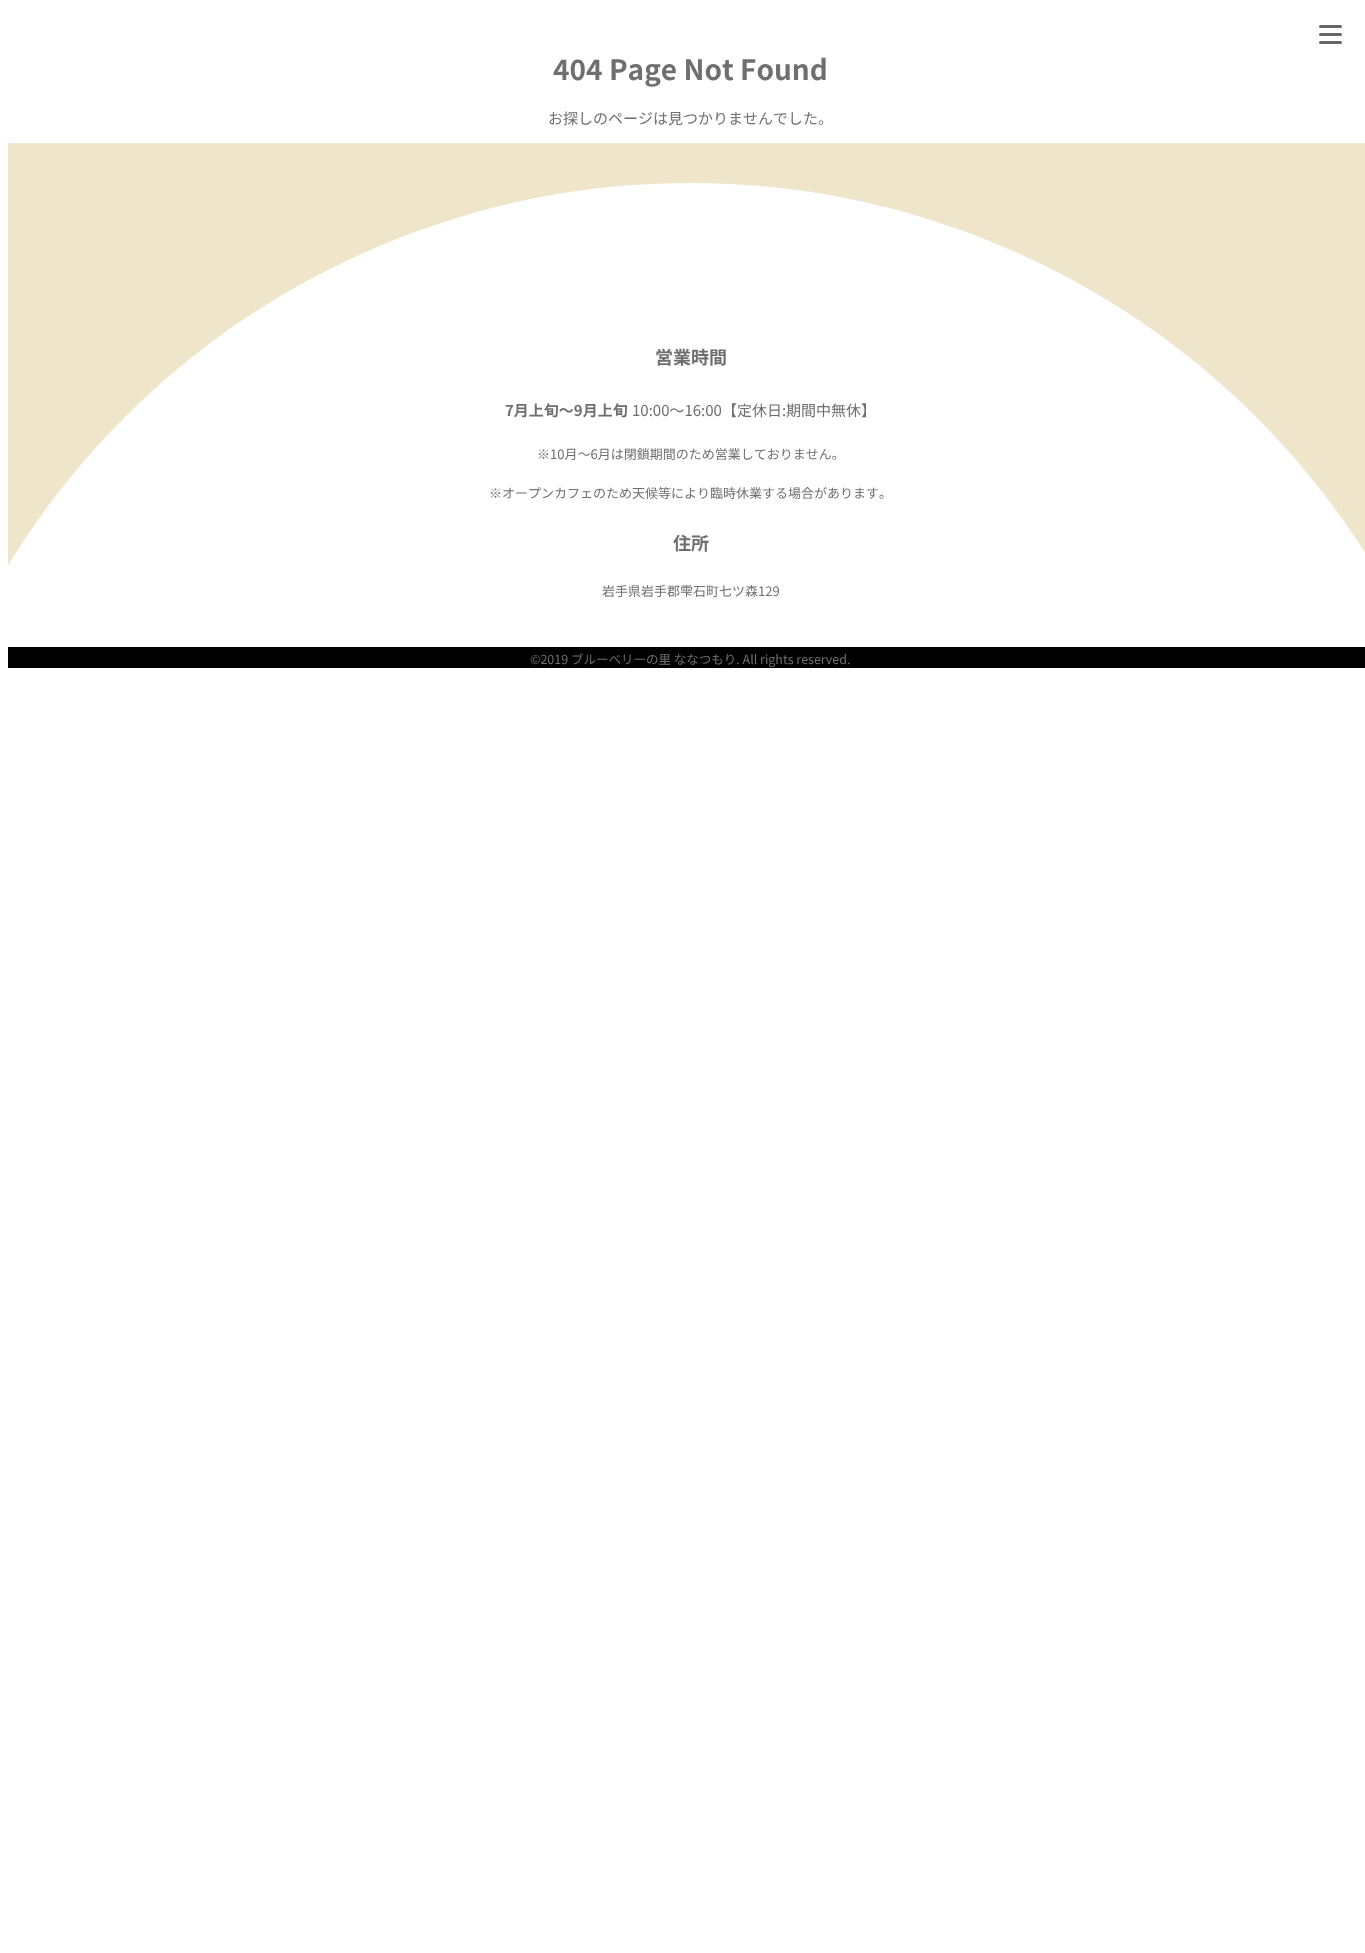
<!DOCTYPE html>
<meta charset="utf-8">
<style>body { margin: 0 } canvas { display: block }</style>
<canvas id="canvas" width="1365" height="1953"></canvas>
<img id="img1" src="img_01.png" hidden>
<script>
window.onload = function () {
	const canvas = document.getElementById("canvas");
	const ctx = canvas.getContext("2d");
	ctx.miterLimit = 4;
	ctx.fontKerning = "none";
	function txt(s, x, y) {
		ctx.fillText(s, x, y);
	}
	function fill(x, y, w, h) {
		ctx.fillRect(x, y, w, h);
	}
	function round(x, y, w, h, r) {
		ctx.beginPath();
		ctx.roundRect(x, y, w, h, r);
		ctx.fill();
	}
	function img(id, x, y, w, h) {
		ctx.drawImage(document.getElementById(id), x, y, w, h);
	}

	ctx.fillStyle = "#FFFFFF";
	fill(0, 0, 1365, 1953);
	ctx.fillStyle = "#666666";
	round(1319, 25, 23, 3, 1.5);
	round(1319, 33, 23, 3, 1.5);
	round(1319, 41, 23, 3, 1.5);
	ctx.fillStyle = "#EFE5CB";
	fill(8, 143, 1357, 424);
	img("img1", 8, 183, 1357, 464);
	ctx.fillStyle = "#000000";
	fill(8, 647, 1357, 21);
	ctx.font = "bold 28px Noto Sans JP";
	ctx.fillStyle = "#6F6F6F";
	txt("404 Page Not Found", 553, 80);
	ctx.font = "15px Noto Sans JP";
	txt("お探しのページは見つかりませんでした。", 548, 124);
	ctx.font = "bold 18px Noto Sans JP";
	txt("営業時間", 655, 364);
	ctx.font = "bold 15px Noto Sans JP";
	txt("7月上旬〜9月上旬", 505, 416);
	ctx.font = "15px Noto Sans JP";
	txt("10:00〜16:00【定休日:期間中無休】", 632, 416);
	ctx.font = "13px Noto Sans JP";
	txt("※10月〜6月は閉鎖期間のため営業しておりません。", 537, 459);
	txt("※オープンカフェのため天候等により臨時休業する場合があります。", 489, 498);
	ctx.font = "bold 18px Noto Sans JP";
	txt("住所", 673, 550);
	ctx.font = "13px Noto Sans JP";
	txt("岩手県岩手郡雫石町七ツ森129", 602, 596);
	ctx.font = "12.5px Noto Sans JP";
	txt("©2019 ブルーベリーの里 ななつもり. All rights reserved.", 530, 664);
};
</script>
